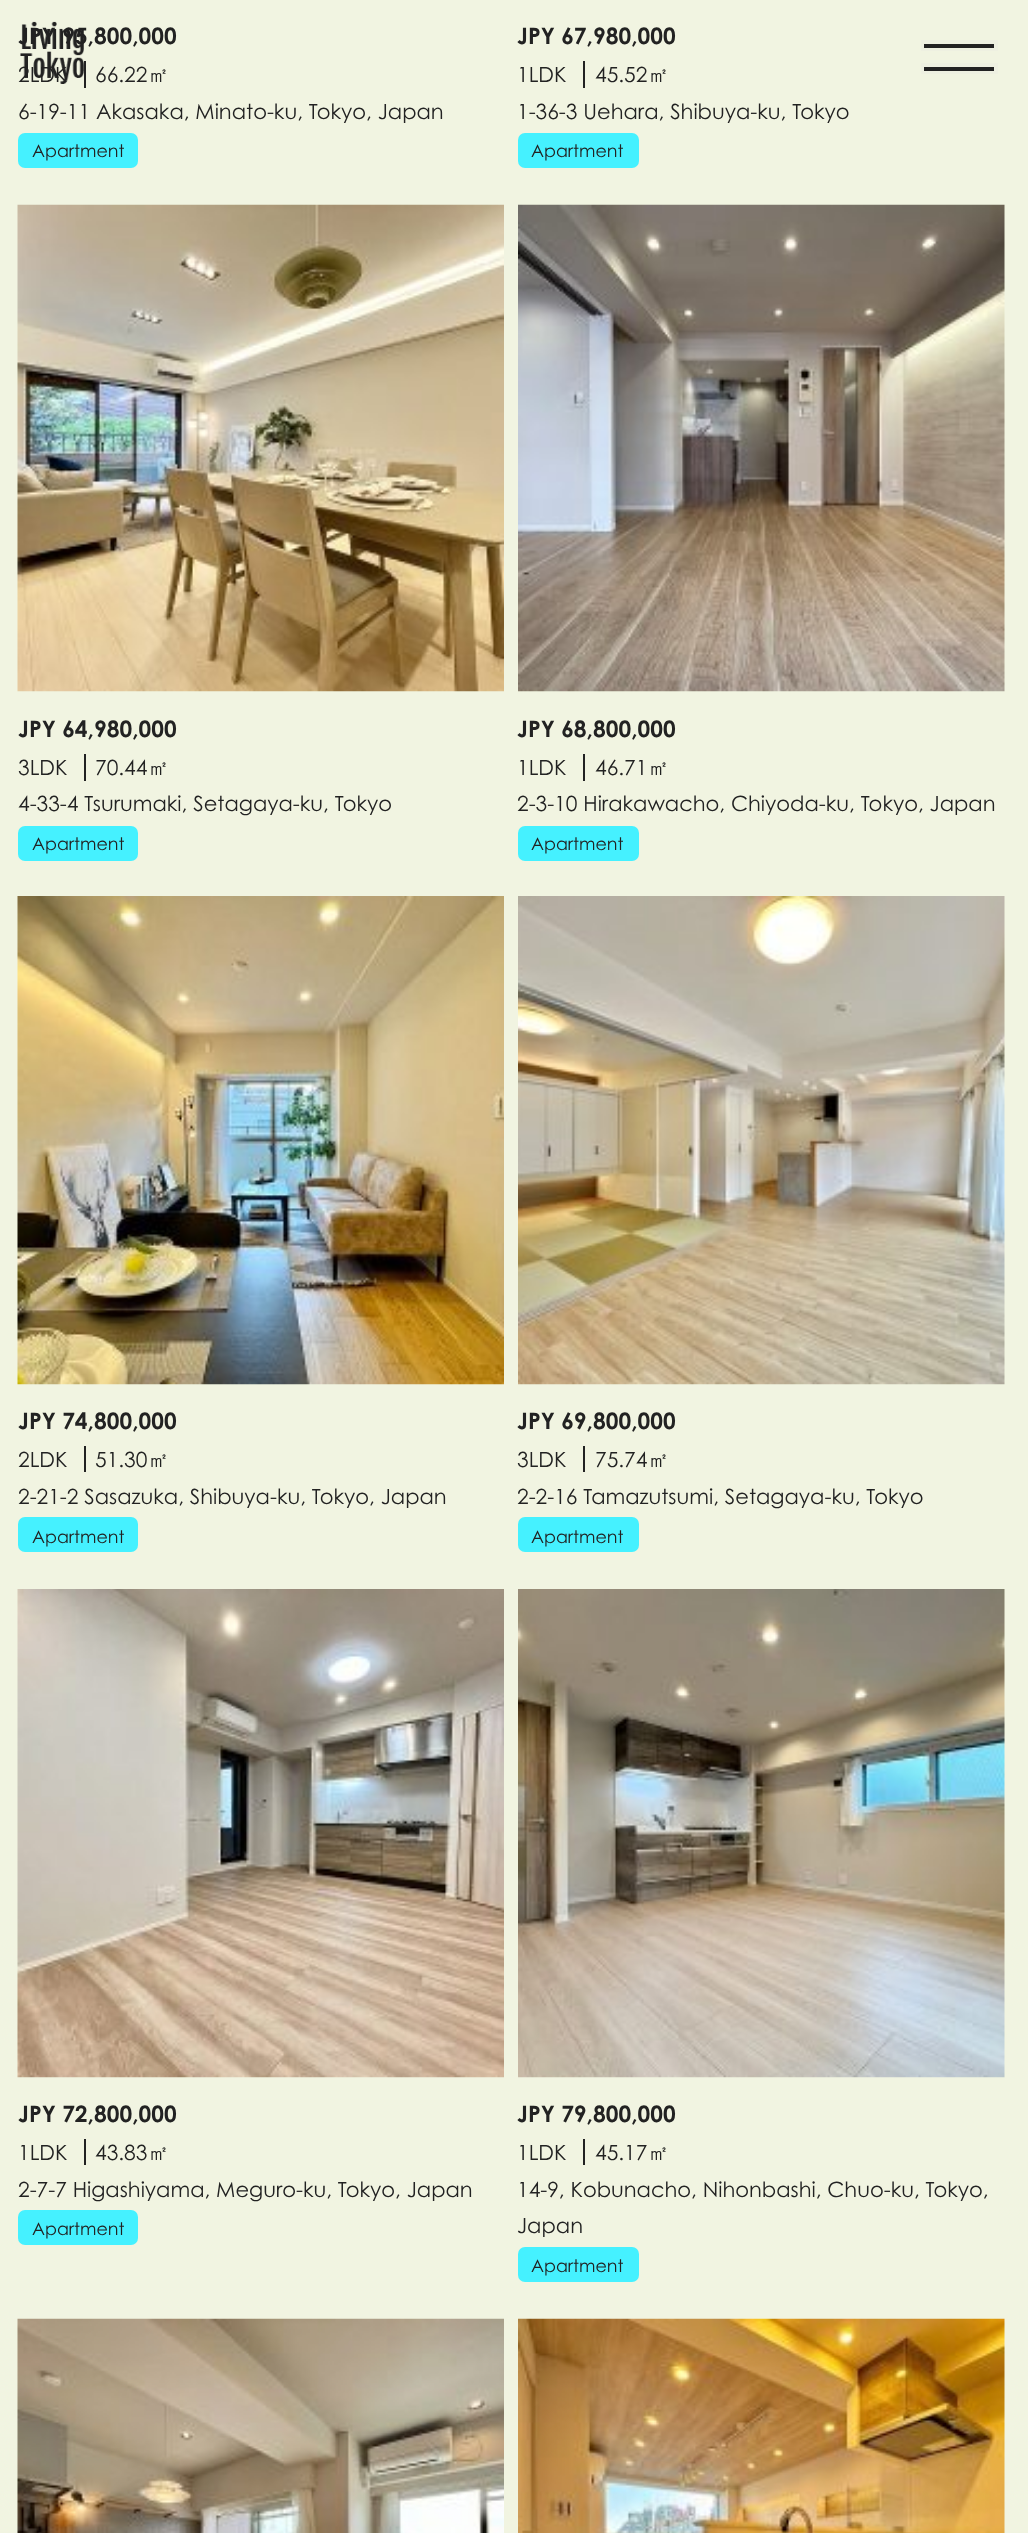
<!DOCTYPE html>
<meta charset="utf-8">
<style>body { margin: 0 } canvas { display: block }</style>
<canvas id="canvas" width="1028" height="2533"></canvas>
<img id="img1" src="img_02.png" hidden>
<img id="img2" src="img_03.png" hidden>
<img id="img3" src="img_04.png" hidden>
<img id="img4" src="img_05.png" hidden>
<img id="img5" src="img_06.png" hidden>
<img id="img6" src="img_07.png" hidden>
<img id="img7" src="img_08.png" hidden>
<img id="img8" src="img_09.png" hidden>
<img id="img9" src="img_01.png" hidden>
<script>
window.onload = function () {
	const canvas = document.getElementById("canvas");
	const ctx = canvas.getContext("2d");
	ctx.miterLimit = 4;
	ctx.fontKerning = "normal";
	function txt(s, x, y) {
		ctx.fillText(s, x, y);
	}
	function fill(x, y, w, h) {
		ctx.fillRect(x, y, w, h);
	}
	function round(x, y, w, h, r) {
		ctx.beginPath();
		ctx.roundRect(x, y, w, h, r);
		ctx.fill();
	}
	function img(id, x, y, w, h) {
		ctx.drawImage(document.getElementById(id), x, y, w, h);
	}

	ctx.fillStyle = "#F1F4E1";
	fill(0, 0, 1028, 2533);
	ctx.strokeStyle = "#EEF0E1";
	ctx.lineWidth = 4;
	ctx.strokeRect(923, 42, 73, 7);
	ctx.fillStyle = "#222222";
	fill(924, 44, 70, 4);
	ctx.strokeRect(923, 65, 73, 7);
	fill(924, 67, 70, 4);
	fill(84, 61, 2, 27);
	ctx.fillStyle = "#45F1FF";
	round(18, 133, 120, 35, 7);
	ctx.fillStyle = "#222222";
	fill(583, 61, 2, 27);
	ctx.fillStyle = "#45F1FF";
	round(518, 133, 121, 35, 7);
	img("img1", 17, 204, 487, 488);
	ctx.fillStyle = "#222222";
	fill(84, 754, 2, 27);
	ctx.fillStyle = "#45F1FF";
	round(18, 826, 120, 35, 7);
	img("img2", 518, 204, 487, 488);
	ctx.fillStyle = "#222222";
	fill(583, 754, 2, 27);
	ctx.fillStyle = "#45F1FF";
	round(518, 826, 121, 35, 7);
	img("img3", 17, 896, 487, 489);
	ctx.fillStyle = "#222222";
	fill(84, 1446, 2, 26);
	ctx.fillStyle = "#45F1FF";
	round(18, 1517, 120, 35, 7);
	img("img4", 518, 896, 487, 489);
	ctx.fillStyle = "#222222";
	fill(583, 1446, 2, 26);
	ctx.fillStyle = "#45F1FF";
	round(518, 1517, 121, 35, 7);
	img("img5", 17, 1589, 487, 489);
	ctx.fillStyle = "#222222";
	fill(84, 2139, 2, 26);
	ctx.fillStyle = "#45F1FF";
	round(18, 2210, 120, 35, 7);
	img("img6", 518, 1589, 487, 489);
	ctx.fillStyle = "#222222";
	fill(583, 2139, 2, 26);
	ctx.fillStyle = "#45F1FF";
	round(518, 2247, 121, 35, 7);
	img("img7", 17, 2318, 487, 215);
	img("img8", 518, 2318, 487, 215);
	ctx.font = "bold 22.75px Century Gothic";
	ctx.fillStyle = "#222222";
	txt("JPY 95,800,000", 18, 44);
	ctx.font = "21px Century Gothic";
	txt("2LDK", 18, 82);
	img("img9", 20, 21, 64, 63);
	txt("66.22", 95, 82);
	ctx.font = "500 21px WenQuanYi Zen Hei";
	txt("㎡", 148, 82);
	ctx.font = "21px Century Gothic";
	txt("6-19-11 Akasaka, Minato-ku, Tokyo, Japan", 18, 119);
	ctx.font = "17.5px Century Gothic";
	txt("Apartment", 32, 157);
	ctx.font = "bold 22.75px Century Gothic";
	txt("JPY 67,980,000", 517, 44);
	ctx.font = "21px Century Gothic";
	txt("1LDK", 517, 82);
	txt("45.52", 595, 82);
	ctx.font = "500 21px WenQuanYi Zen Hei";
	txt("㎡", 648, 82);
	ctx.font = "21px Century Gothic";
	txt("1-36-3 Uehara, Shibuya-ku, Tokyo", 517, 119);
	ctx.font = "17.5px Century Gothic";
	txt("Apartment", 531, 157);
	ctx.font = "bold 22.75px Century Gothic";
	txt("JPY 64,980,000", 18, 737);
	ctx.font = "21px Century Gothic";
	txt("3LDK", 18, 775);
	txt("70.44", 95, 775);
	ctx.font = "500 21px WenQuanYi Zen Hei";
	txt("㎡", 148, 775);
	ctx.font = "21px Century Gothic";
	txt("4-33-4 Tsurumaki, Setagaya-ku, Tokyo", 18, 811);
	ctx.font = "17.5px Century Gothic";
	txt("Apartment", 32, 850);
	ctx.font = "bold 22.75px Century Gothic";
	txt("JPY 68,800,000", 517, 737);
	ctx.font = "21px Century Gothic";
	txt("1LDK", 517, 775);
	txt("46.71", 595, 775);
	ctx.font = "500 21px WenQuanYi Zen Hei";
	txt("㎡", 648, 775);
	ctx.font = "21px Century Gothic";
	txt("2-3-10 Hirakawacho, Chiyoda-ku, Tokyo, Japan", 517, 811);
	ctx.font = "17.5px Century Gothic";
	txt("Apartment", 531, 850);
	ctx.font = "bold 22.75px Century Gothic";
	txt("JPY 74,800,000", 18, 1429);
	ctx.font = "21px Century Gothic";
	txt("2LDK", 18, 1467);
	txt("51.30", 95, 1467);
	ctx.font = "500 21px WenQuanYi Zen Hei";
	txt("㎡", 148, 1467);
	ctx.font = "21px Century Gothic";
	txt("2-21-2 Sasazuka, Shibuya-ku, Tokyo, Japan", 18, 1504);
	ctx.font = "17.5px Century Gothic";
	txt("Apartment", 32, 1543);
	ctx.font = "bold 22.75px Century Gothic";
	txt("JPY 69,800,000", 517, 1429);
	ctx.font = "21px Century Gothic";
	txt("3LDK", 517, 1467);
	txt("75.74", 595, 1467);
	ctx.font = "500 21px WenQuanYi Zen Hei";
	txt("㎡", 648, 1467);
	ctx.font = "21px Century Gothic";
	txt("2-2-16 Tamazutsumi, Setagaya-ku, Tokyo", 517, 1504);
	ctx.font = "17.5px Century Gothic";
	txt("Apartment", 531, 1543);
	ctx.font = "bold 22.75px Century Gothic";
	txt("JPY 72,800,000", 18, 2122);
	ctx.font = "21px Century Gothic";
	txt("1LDK", 18, 2160);
	txt("43.83", 95, 2160);
	ctx.font = "500 21px WenQuanYi Zen Hei";
	txt("㎡", 148, 2160);
	ctx.font = "21px Century Gothic";
	txt("2-7-7 Higashiyama, Meguro-ku, Tokyo, Japan", 18, 2197);
	ctx.font = "17.5px Century Gothic";
	txt("Apartment", 32, 2235);
	ctx.font = "bold 22.75px Century Gothic";
	txt("JPY 79,800,000", 517, 2122);
	ctx.font = "21px Century Gothic";
	txt("1LDK", 517, 2160);
	txt("45.17", 595, 2160);
	ctx.font = "500 21px WenQuanYi Zen Hei";
	txt("㎡", 648, 2160);
	ctx.font = "21px Century Gothic";
	txt("14-9, Kobunacho, Nihonbashi, Chuo-ku, Tokyo,", 517, 2197);
	txt("Japan", 517, 2233);
	ctx.font = "17.5px Century Gothic";
	txt("Apartment", 531, 2272);
};
</script>
